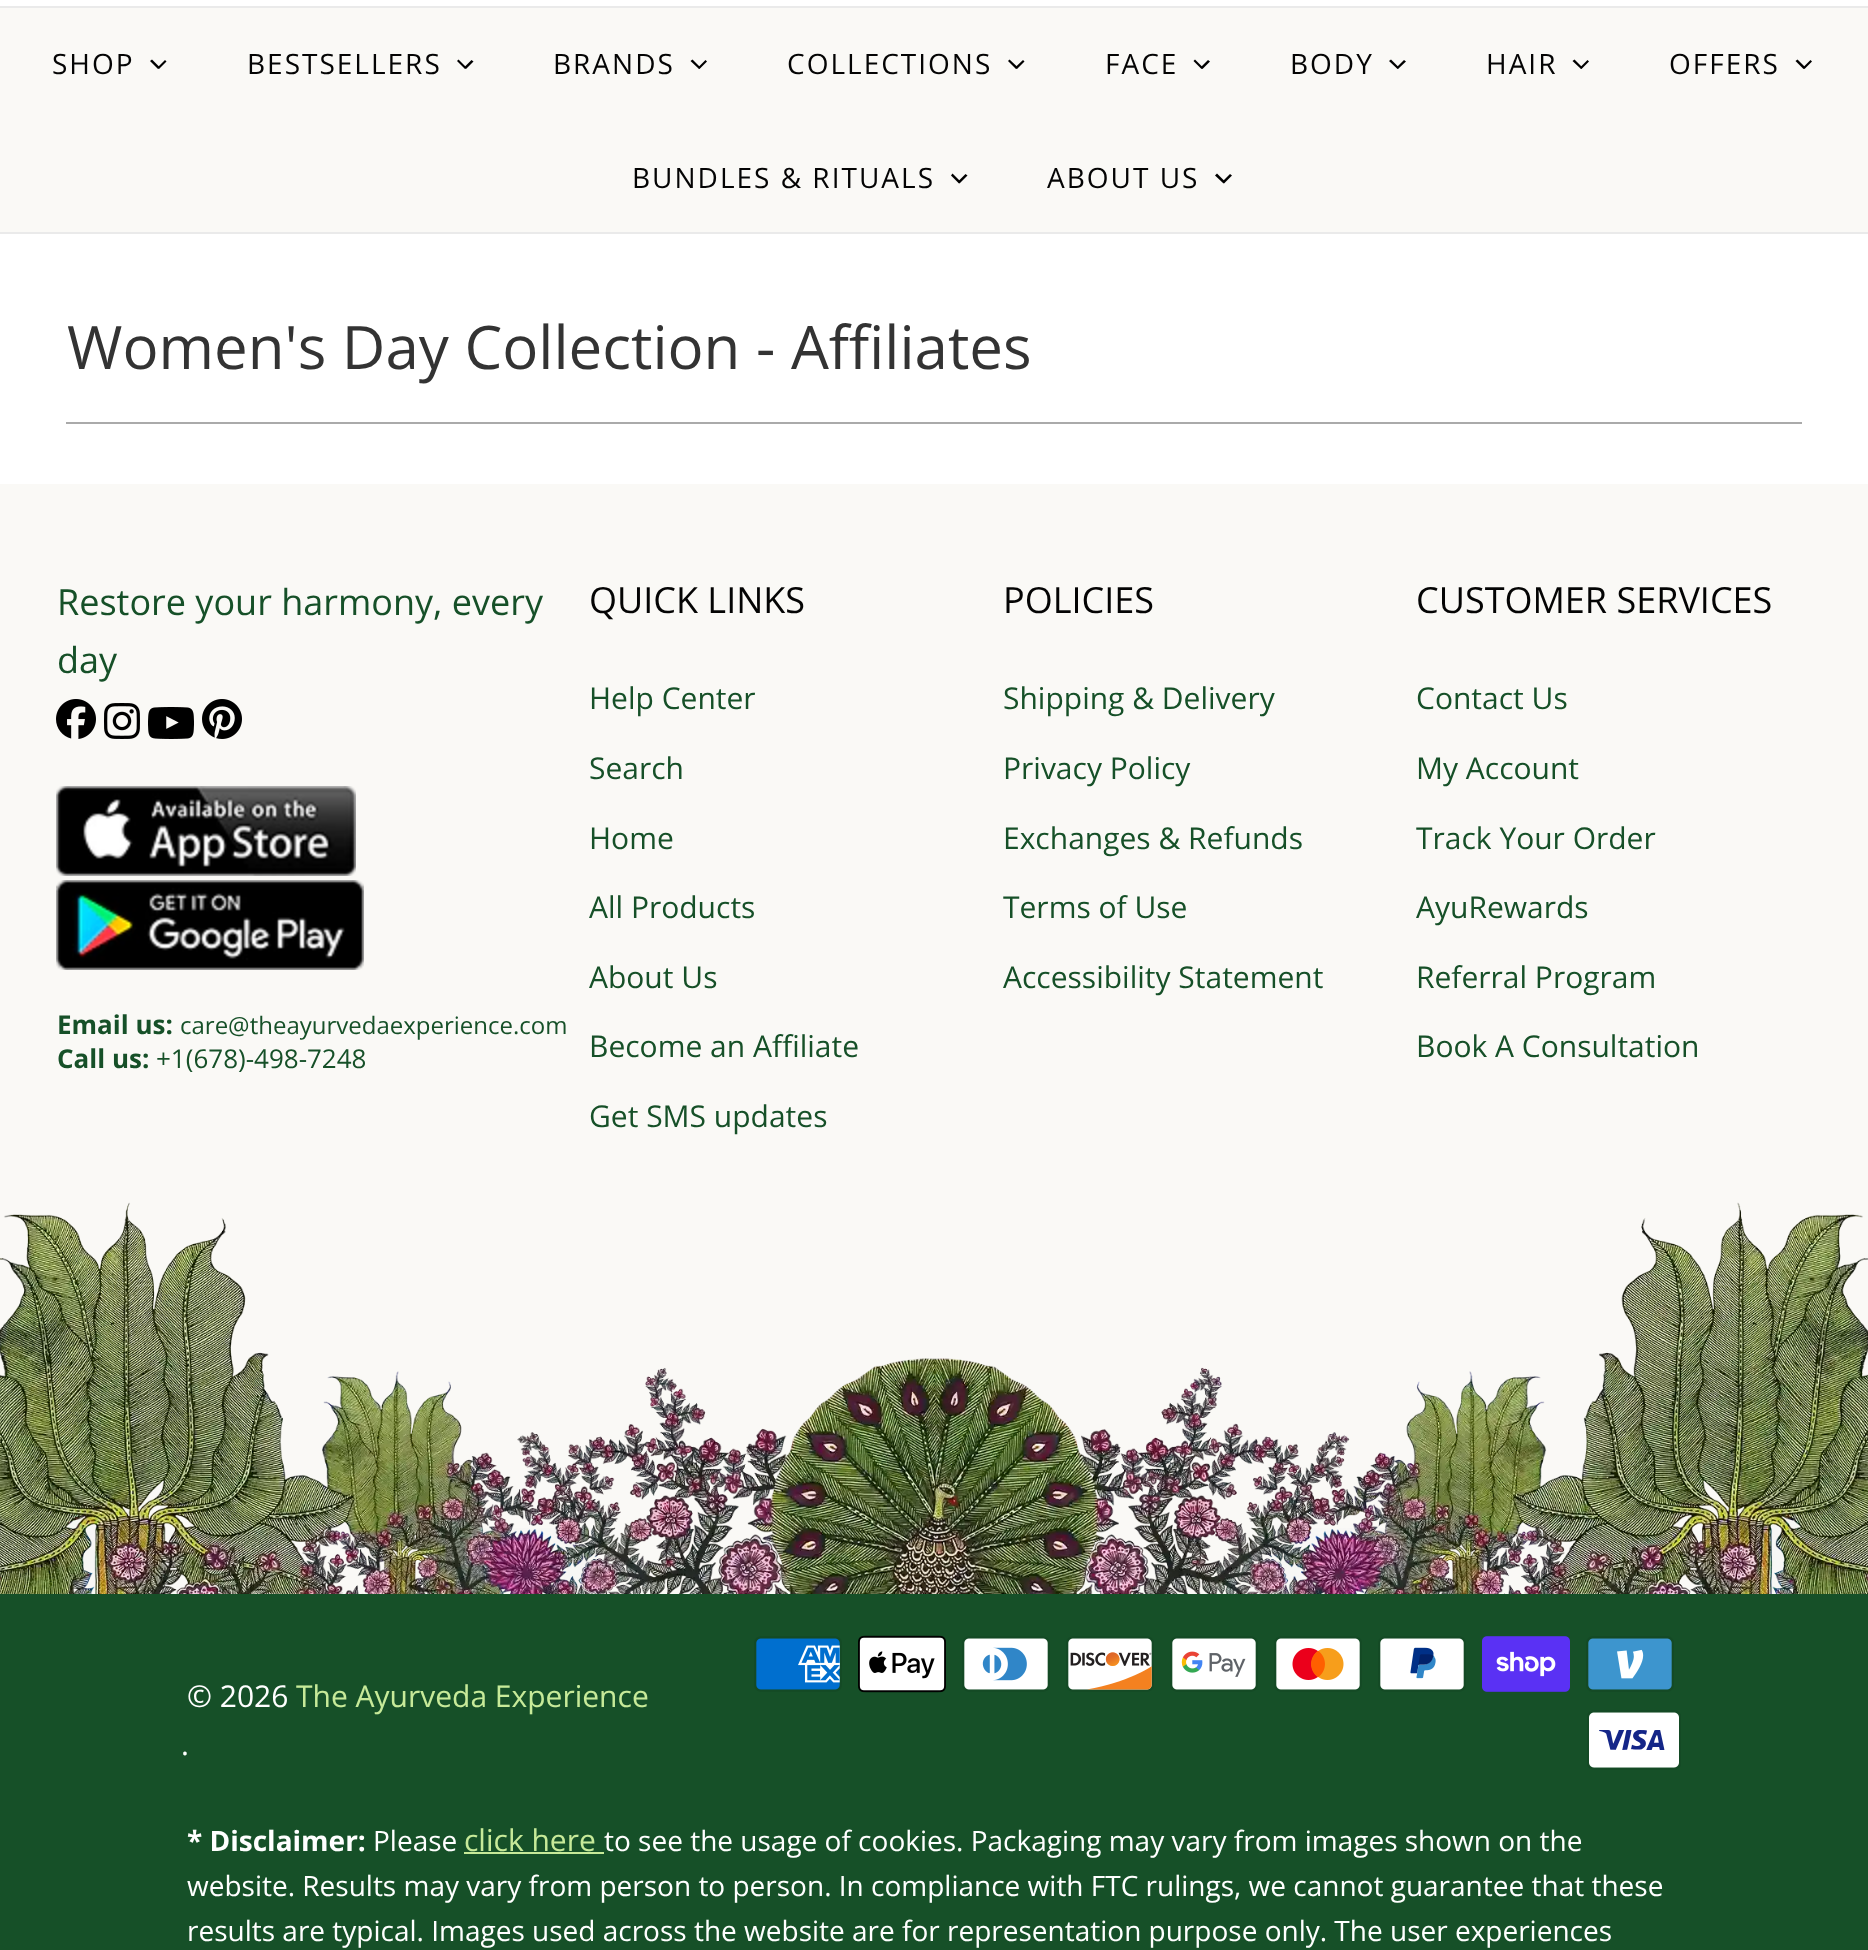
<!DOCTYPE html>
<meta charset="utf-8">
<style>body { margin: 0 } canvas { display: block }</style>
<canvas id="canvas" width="1868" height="1950"></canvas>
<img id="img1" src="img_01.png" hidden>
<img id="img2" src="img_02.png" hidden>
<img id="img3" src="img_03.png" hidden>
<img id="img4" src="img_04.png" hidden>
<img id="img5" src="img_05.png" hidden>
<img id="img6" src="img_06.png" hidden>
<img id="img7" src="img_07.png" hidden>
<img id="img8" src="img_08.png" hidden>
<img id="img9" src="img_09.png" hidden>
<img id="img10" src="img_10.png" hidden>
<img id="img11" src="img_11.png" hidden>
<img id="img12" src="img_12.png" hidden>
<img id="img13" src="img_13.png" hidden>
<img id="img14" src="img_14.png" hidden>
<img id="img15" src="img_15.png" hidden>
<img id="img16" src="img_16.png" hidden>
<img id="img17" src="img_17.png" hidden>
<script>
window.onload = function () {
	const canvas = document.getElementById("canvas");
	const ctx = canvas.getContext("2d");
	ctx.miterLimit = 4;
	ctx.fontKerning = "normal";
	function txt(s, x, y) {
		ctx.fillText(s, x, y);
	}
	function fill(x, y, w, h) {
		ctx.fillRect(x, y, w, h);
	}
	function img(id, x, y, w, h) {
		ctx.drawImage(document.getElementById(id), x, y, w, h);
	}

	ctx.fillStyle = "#FFFFFF";
	fill(0, 0, 1868, 1950);
	ctx.fillStyle = "#FAF9F6";
	fill(0, 8, 1868, 224);
	ctx.fillStyle = "#EAEAEA";
	fill(0, 6, 1868, 2);
	fill(0, 232, 1868, 2);
	ctx.fillStyle = "#000000";
	ctx.beginPath();
	ctx.moveTo(165, 60);
	ctx.lineTo(166.5, 61.5);
	ctx.lineTo(159, 69);
	ctx.lineTo(157.5, 67.5);
	ctx.closePath();
	ctx.fill();
	ctx.beginPath();
	ctx.moveTo(152, 59.5);
	ctx.lineTo(160, 67.5);
	ctx.lineTo(158, 69);
	ctx.lineTo(150, 61);
	ctx.closePath();
	ctx.fill();
	ctx.beginPath();
	ctx.moveTo(471.5, 60);
	ctx.lineTo(473.5, 61.5);
	ctx.lineTo(466, 69);
	ctx.lineTo(464, 67.5);
	ctx.closePath();
	ctx.fill();
	ctx.beginPath();
	ctx.moveTo(458.5, 59.5);
	ctx.lineTo(466.5, 67.5);
	ctx.lineTo(465, 69);
	ctx.lineTo(457, 61);
	ctx.closePath();
	ctx.fill();
	ctx.beginPath();
	ctx.moveTo(705.5, 60);
	ctx.lineTo(707, 61.5);
	ctx.lineTo(699.5, 69);
	ctx.lineTo(698, 67.5);
	ctx.closePath();
	ctx.fill();
	ctx.beginPath();
	ctx.moveTo(692.5, 59.5);
	ctx.lineTo(700.5, 67.5);
	ctx.lineTo(699, 69);
	ctx.lineTo(690.5, 61);
	ctx.closePath();
	ctx.fill();
	ctx.beginPath();
	ctx.moveTo(1023, 60);
	ctx.lineTo(1024.5, 61.5);
	ctx.lineTo(1017, 69);
	ctx.lineTo(1015, 67.5);
	ctx.closePath();
	ctx.fill();
	ctx.beginPath();
	ctx.moveTo(1009.5, 59.5);
	ctx.lineTo(1018, 67.5);
	ctx.lineTo(1016, 69);
	ctx.lineTo(1008, 61);
	ctx.closePath();
	ctx.fill();
	ctx.beginPath();
	ctx.moveTo(1208, 60);
	ctx.lineTo(1210, 61.5);
	ctx.lineTo(1202.5, 69);
	ctx.lineTo(1200.5, 67.5);
	ctx.closePath();
	ctx.fill();
	ctx.beginPath();
	ctx.moveTo(1195, 59.5);
	ctx.lineTo(1203, 67.5);
	ctx.lineTo(1201.5, 69);
	ctx.lineTo(1193.5, 61);
	ctx.closePath();
	ctx.fill();
	ctx.beginPath();
	ctx.moveTo(1404, 60);
	ctx.lineTo(1406, 61.5);
	ctx.lineTo(1398, 69);
	ctx.lineTo(1396.5, 67.5);
	ctx.closePath();
	ctx.fill();
	ctx.beginPath();
	ctx.moveTo(1391, 59.5);
	ctx.lineTo(1399, 67.5);
	ctx.lineTo(1397.5, 69);
	ctx.lineTo(1389, 61);
	ctx.closePath();
	ctx.fill();
	ctx.beginPath();
	ctx.moveTo(1587.5, 60);
	ctx.lineTo(1589, 61.5);
	ctx.lineTo(1581.5, 69);
	ctx.lineTo(1580, 67.5);
	ctx.closePath();
	ctx.fill();
	ctx.beginPath();
	ctx.moveTo(1574.5, 59.5);
	ctx.lineTo(1582.5, 67.5);
	ctx.lineTo(1581, 69);
	ctx.lineTo(1572.5, 61);
	ctx.closePath();
	ctx.fill();
	ctx.beginPath();
	ctx.moveTo(1810.5, 60);
	ctx.lineTo(1812, 61.5);
	ctx.lineTo(1804.5, 69);
	ctx.lineTo(1803, 67.5);
	ctx.closePath();
	ctx.fill();
	ctx.beginPath();
	ctx.moveTo(1797.5, 59.5);
	ctx.lineTo(1805.5, 67.5);
	ctx.lineTo(1803.5, 69);
	ctx.lineTo(1795.5, 61);
	ctx.closePath();
	ctx.fill();
	ctx.beginPath();
	ctx.moveTo(965.5, 174);
	ctx.lineTo(967.5, 175.5);
	ctx.lineTo(959.5, 183.5);
	ctx.lineTo(958, 181.5);
	ctx.closePath();
	ctx.fill();
	ctx.beginPath();
	ctx.moveTo(952.5, 173.5);
	ctx.lineTo(960.5, 181.5);
	ctx.lineTo(959, 183.5);
	ctx.lineTo(951, 175.5);
	ctx.closePath();
	ctx.fill();
	ctx.beginPath();
	ctx.moveTo(1230, 174);
	ctx.lineTo(1232, 175.5);
	ctx.lineTo(1224, 183.5);
	ctx.lineTo(1222.5, 181.5);
	ctx.closePath();
	ctx.fill();
	ctx.beginPath();
	ctx.moveTo(1217, 173.5);
	ctx.lineTo(1225, 181.5);
	ctx.lineTo(1223.5, 183.5);
	ctx.lineTo(1215, 175.5);
	ctx.closePath();
	ctx.fill();
	ctx.fillStyle = "#AAAAAA";
	fill(66, 422, 1736, 2);
	ctx.fillStyle = "#FAF9F6";
	fill(0, 484, 1868, 1110);
	img("img1", 56, 699, 40, 40);
	img("img2", 104, 703, 36, 36);
	img("img3", 148, 707, 46, 32);
	img("img4", 202, 699, 40, 40);
	img("img5", 56, 786, 300, 90);
	img("img6", 56, 880, 308, 90);
	img("img7", 0, 1202, 1868, 392);
	ctx.fillStyle = "#165028";
	fill(0, 1594, 1868, 356);
	img("img8", 754, 1636, 88, 56);
	img("img9", 858, 1635, 88, 58);
	img("img10", 962, 1636, 88, 56);
	img("img11", 1066, 1636, 88, 56);
	img("img12", 1170, 1636, 88, 56);
	img("img13", 1274, 1636, 88, 56);
	img("img14", 1378, 1636, 88, 56);
	img("img15", 1482, 1636, 88, 56);
	img("img16", 1586, 1636, 88, 56);
	img("img17", 1587, 1710, 94, 60);
	ctx.fillStyle = "#C7EA99";
	fill(464, 1852, 140, 2);
	ctx.letterSpacing = "2px";
	ctx.font = "28px Open Sans";
	ctx.fillStyle = "#040404";
	txt("SHOP", 52, 74);
	txt("BESTSELLERS", 247, 74);
	txt("BRANDS", 553, 74);
	txt("COLLECTIONS", 787, 74);
	txt("FACE", 1105, 74);
	txt("BODY", 1290, 74);
	txt("HAIR", 1486, 74);
	txt("OFFERS", 1669, 74);
	txt("BUNDLES & RITUALS", 632, 188);
	txt("ABOUT US", 1047, 188);
	ctx.letterSpacing = "0px";
	ctx.font = "60px Open Sans";
	ctx.fillStyle = "#333333";
	txt("Women's Day Collection - Affiliates", 67, 369);
	ctx.font = "36px Open Sans";
	ctx.fillStyle = "#165028";
	txt("Restore your harmony, every", 57, 615);
	txt("day", 57, 673);
	ctx.font = "bold 26px Open Sans";
	txt("Email us:", 57, 1034);
	ctx.font = "24px Open Sans";
	txt("care@theayurvedaexperience.com", 180, 1034);
	ctx.font = "bold 26px Open Sans";
	txt("Call us:", 57, 1068);
	ctx.font = "26px Open Sans";
	txt("+1(678)-498-7248", 156, 1068);
	ctx.font = "36px Open Sans";
	ctx.fillStyle = "#040404";
	txt("QUICK LINKS", 589, 613);
	ctx.font = "30px Open Sans";
	ctx.fillStyle = "#165028";
	txt("Help Center", 589, 709);
	txt("Search", 589, 779);
	txt("Home", 589, 849);
	txt("All Products", 589, 918);
	txt("About Us", 589, 988);
	txt("Become an Affiliate", 589, 1057);
	txt("Get SMS updates", 589, 1127);
	ctx.font = "36px Open Sans";
	ctx.fillStyle = "#040404";
	txt("POLICIES", 1003, 613);
	ctx.font = "30px Open Sans";
	ctx.fillStyle = "#165028";
	txt("Shipping & Delivery", 1003, 709);
	txt("Privacy Policy", 1003, 779);
	txt("Exchanges & Refunds", 1003, 849);
	txt("Terms of Use", 1003, 918);
	txt("Accessibility Statement", 1003, 988);
	ctx.font = "36px Open Sans";
	ctx.fillStyle = "#040404";
	txt("CUSTOMER SERVICES", 1416, 613);
	ctx.font = "30px Open Sans";
	ctx.fillStyle = "#165028";
	txt("Contact Us", 1416, 709);
	txt("My Account", 1416, 779);
	txt("Track Your Order", 1416, 849);
	txt("AyuRewards", 1416, 918);
	txt("Referral Program", 1416, 988);
	txt("Book A Consultation", 1416, 1057);
	ctx.fillStyle = "#FFFFFF";
	txt("© 2026", 187, 1707);
	ctx.fillStyle = "#C7EA99";
	txt("The Ayurveda Experience", 296, 1707);
	ctx.fillStyle = "#FFFFFF";
	txt(".", 181, 1755);
	ctx.font = "bold 28px Open Sans";
	txt("* Disclaimer:", 187, 1851);
	ctx.font = "28px Open Sans";
	txt("Please", 373, 1851);
	ctx.font = "30px Open Sans";
	ctx.fillStyle = "#C7EA99";
	txt("click here", 464, 1851);
	ctx.font = "28px Open Sans";
	ctx.fillStyle = "#FFFFFF";
	txt("to see the usage of cookies. Packaging may vary from images shown on the", 604, 1851);
	txt("website. Results may vary from person to person. In compliance with FTC rulings, we cannot guarantee that these", 187, 1896);
	txt("results are typical. Images used across the website are for representation purpose only. The user experiences", 187, 1941);
};
</script>
